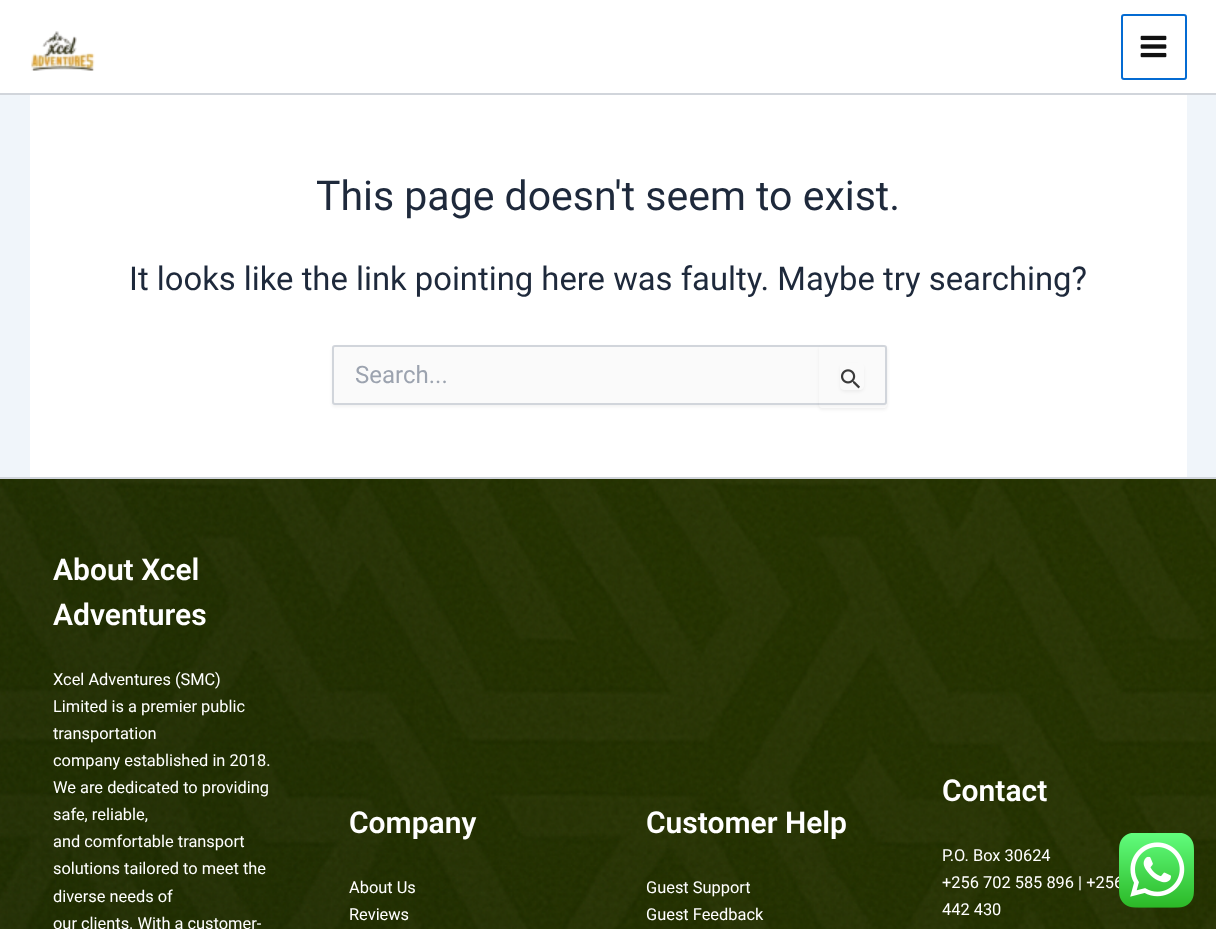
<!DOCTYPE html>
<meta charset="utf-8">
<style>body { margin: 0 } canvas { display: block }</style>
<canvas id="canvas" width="1216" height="929"></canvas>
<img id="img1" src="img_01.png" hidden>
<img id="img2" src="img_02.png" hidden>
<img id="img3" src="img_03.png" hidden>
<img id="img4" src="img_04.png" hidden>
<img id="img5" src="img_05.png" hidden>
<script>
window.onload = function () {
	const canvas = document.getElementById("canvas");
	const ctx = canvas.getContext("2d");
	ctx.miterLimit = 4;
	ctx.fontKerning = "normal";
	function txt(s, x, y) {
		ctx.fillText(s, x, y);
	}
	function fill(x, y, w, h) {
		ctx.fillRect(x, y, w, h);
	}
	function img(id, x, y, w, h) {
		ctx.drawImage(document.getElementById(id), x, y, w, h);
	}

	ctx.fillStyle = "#F0F5FA";
	fill(0, 0, 1216, 929);
	ctx.fillStyle = "#FFFFFF";
	fill(0, 0, 1216, 93);
	ctx.fillStyle = "#D1D5DB";
	fill(0, 93, 1216, 2);
	img("img1", 31, 31, 64, 40);
	ctx.beginPath();
	ctx.roundRect(1122, 15, 64, 64, 2);
	ctx.strokeStyle = "#046BD2";
	ctx.lineWidth = 2;
	ctx.stroke();
	img("img2", 1140, 35, 27, 23);
	ctx.fillStyle = "#FFFFFF";
	fill(30, 95, 1157, 382);
	ctx.fillStyle = "rgba(0, 0, 0, 0.05)";
	ctx.filter = "blur(1.5px)";
	ctx.beginPath();
	ctx.roundRect(332, 347, 555, 60, 3);
	ctx.fill();
	ctx.filter = "none";
	ctx.fillStyle = "#FAFAFA";
	ctx.beginPath();
	ctx.roundRect(333, 346, 553, 58, 2);
	ctx.fill();
	ctx.strokeStyle = "#D1D5DB";
	ctx.stroke();
	ctx.save();
	ctx.beginPath();
	ctx.moveTo(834, 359);
	ctx.lineTo(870, 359);
	ctx.lineTo(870, 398);
	ctx.lineTo(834, 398);
	ctx.closePath();
	ctx.moveTo(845, 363);
	ctx.lineTo(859, 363);
	ctx.bezierCurveTo(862, 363, 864, 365, 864, 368);
	ctx.lineTo(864, 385);
	ctx.bezierCurveTo(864, 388, 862, 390, 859, 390);
	ctx.lineTo(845, 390);
	ctx.bezierCurveTo(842, 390, 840, 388, 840, 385);
	ctx.lineTo(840, 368);
	ctx.bezierCurveTo(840, 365, 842, 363, 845, 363);
	ctx.closePath();
	ctx.clip("evenodd");
	ctx.fillStyle = "rgba(0, 0, 0, 0.05)";
	ctx.filter = "blur(1.5px)";
	ctx.beginPath();
	ctx.roundRect(840, 365, 24, 27, 5);
	ctx.fill();
	ctx.filter = "none";
	ctx.restore();
	img("img3", 841, 369, 19, 20);
	ctx.save();
	ctx.beginPath();
	ctx.moveTo(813, 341);
	ctx.lineTo(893, 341);
	ctx.lineTo(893, 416);
	ctx.lineTo(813, 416);
	ctx.closePath();
	ctx.moveTo(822, 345);
	ctx.lineTo(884, 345);
	ctx.bezierCurveTo(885.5, 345, 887, 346.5, 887, 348);
	ctx.lineTo(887, 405);
	ctx.bezierCurveTo(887, 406.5, 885.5, 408, 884, 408);
	ctx.lineTo(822, 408);
	ctx.bezierCurveTo(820.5, 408, 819, 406.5, 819, 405);
	ctx.lineTo(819, 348);
	ctx.bezierCurveTo(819, 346.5, 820.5, 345, 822, 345);
	ctx.closePath();
	ctx.clip("evenodd");
	ctx.fillStyle = "rgba(0, 0, 0, 0.05)";
	ctx.filter = "blur(1.5px)";
	ctx.beginPath();
	ctx.roundRect(819, 347, 68, 63, 3);
	ctx.fill();
	ctx.filter = "none";
	ctx.restore();
	img("img4", 0, 479, 1216, 450);
	ctx.fillStyle = "#D1D5DB";
	fill(0, 477, 1216, 2);
	ctx.font = "41px Roboto";
	ctx.fillStyle = "#1E293B";
	txt("This page doesn't seem to exist.", 316, 210);
	ctx.font = "32.8px Roboto";
	txt("It looks like the link pointing here was faulty. Maybe try searching?", 129, 290);
	ctx.font = "24px Roboto";
	ctx.fillStyle = "#9CA3AF";
	txt("Search...", 355, 383);
	ctx.font = "600 30px Roboto";
	ctx.fillStyle = "#FFFFFF";
	txt("About Xcel", 53, 580);
	txt("Adventures", 53, 625);
	ctx.font = "16.4px Roboto";
	txt("Xcel Adventures (SMC)", 53, 685);
	txt("Limited is a premier public", 53, 712);
	txt("transportation", 53, 739);
	txt("company established in 2018.", 53, 766);
	txt("We are dedicated to providing", 53, 793);
	txt("safe, reliable,", 53, 820);
	txt("and comfortable transport", 53, 847);
	txt("solutions tailored to meet the", 53, 874);
	txt("diverse needs of", 53, 902);
	txt("our clients. With a customer-", 53, 929);
	ctx.font = "600 30px Roboto";
	txt("Company", 349, 833);
	ctx.font = "16.4px Roboto";
	txt("About Us", 349, 893);
	txt("Reviews", 349, 920);
	ctx.font = "600 30px Roboto";
	txt("Customer Help", 646, 833);
	ctx.font = "16.4px Roboto";
	txt("Guest Support", 646, 893);
	txt("Guest Feedback", 646, 920);
	ctx.font = "600 30px Roboto";
	txt("Contact", 942, 801);
	ctx.font = "16.4px Roboto";
	txt("P.O. Box 30624", 942, 861);
	txt("+256 702 585 896 | +256", 942, 888);
	txt("442 430", 942, 915);
	img("img5", 1119, 833, 75, 75);
};
</script>
